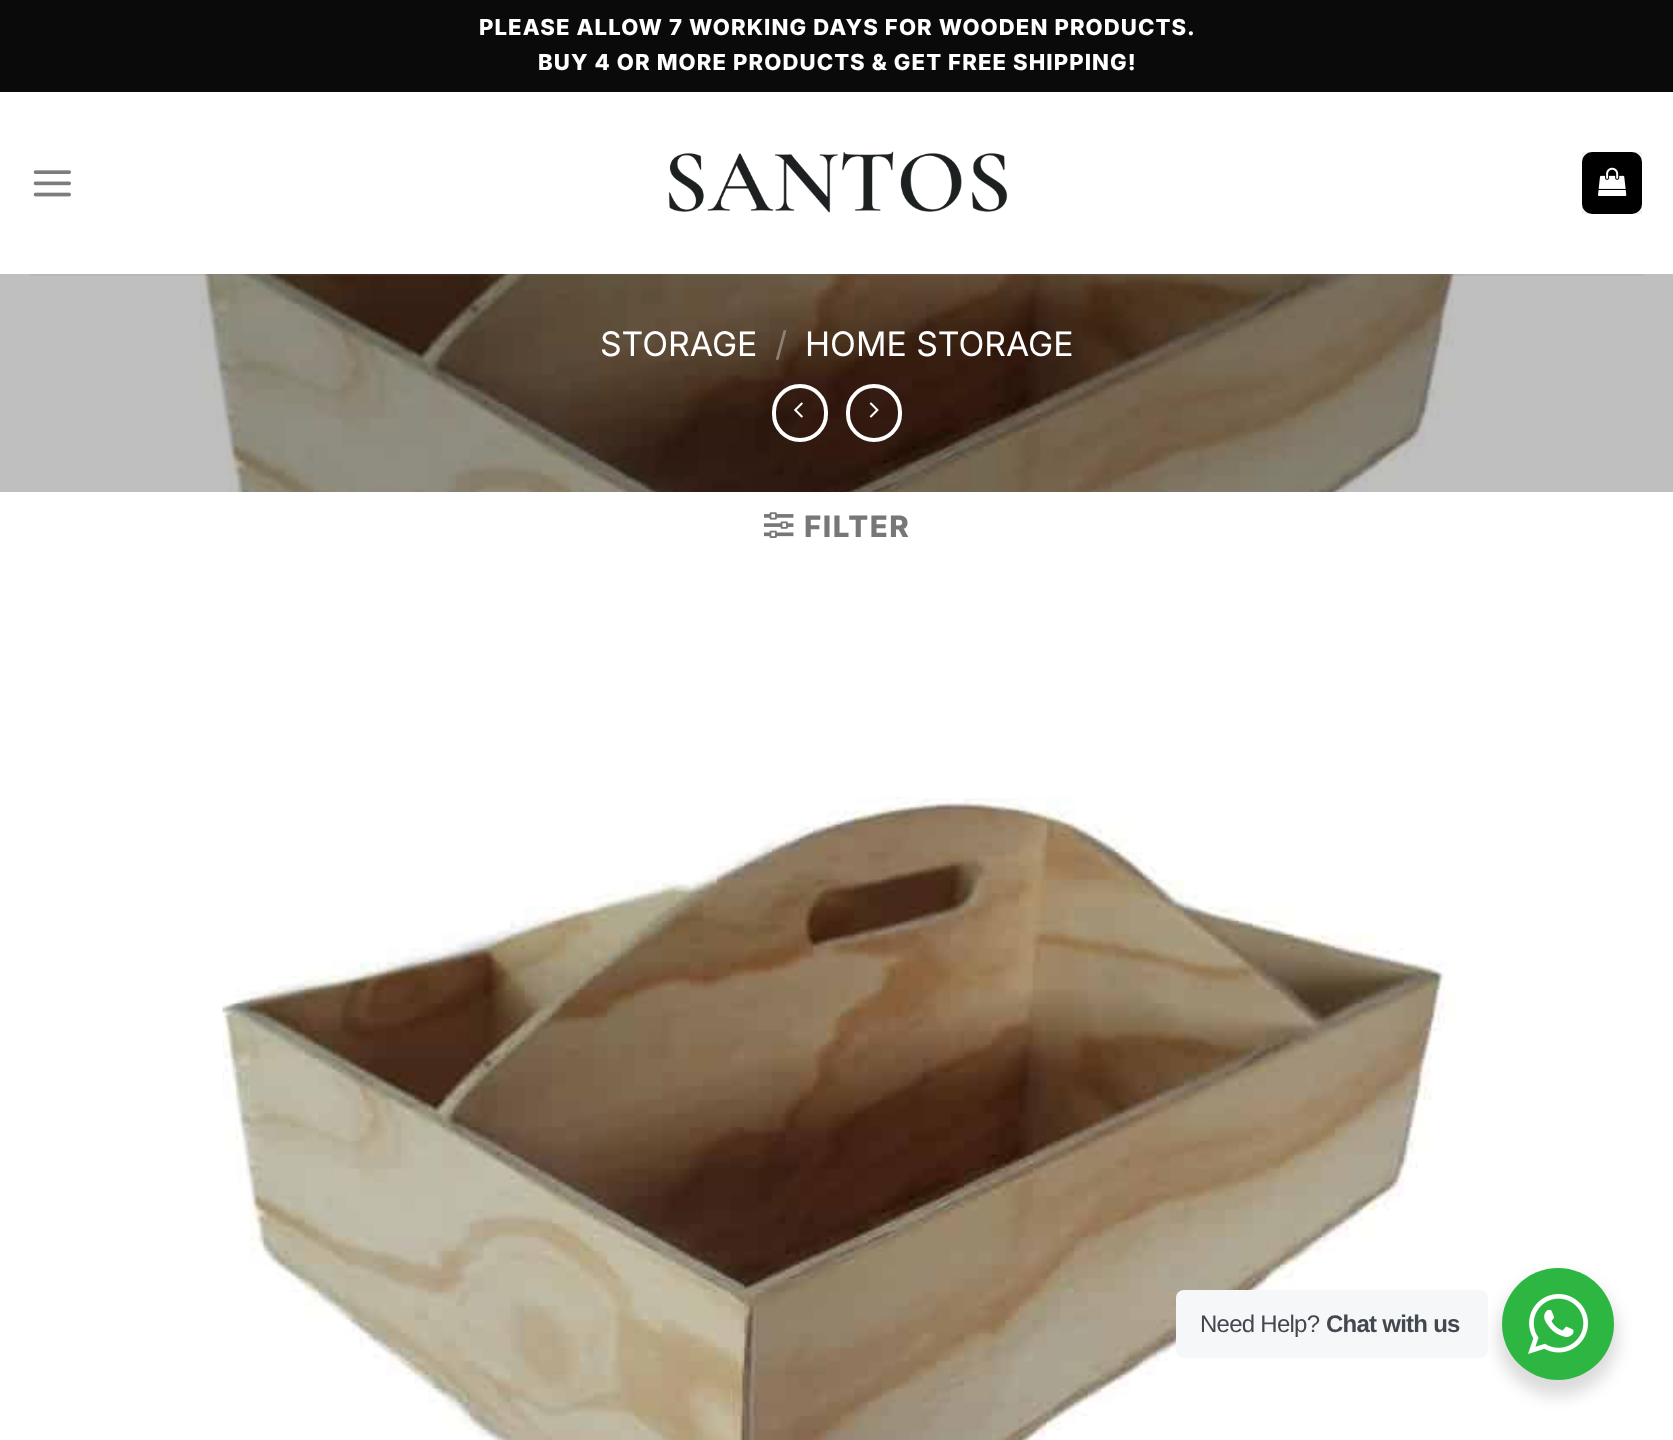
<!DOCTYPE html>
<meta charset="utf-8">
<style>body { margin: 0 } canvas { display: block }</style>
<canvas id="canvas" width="1673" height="1440"></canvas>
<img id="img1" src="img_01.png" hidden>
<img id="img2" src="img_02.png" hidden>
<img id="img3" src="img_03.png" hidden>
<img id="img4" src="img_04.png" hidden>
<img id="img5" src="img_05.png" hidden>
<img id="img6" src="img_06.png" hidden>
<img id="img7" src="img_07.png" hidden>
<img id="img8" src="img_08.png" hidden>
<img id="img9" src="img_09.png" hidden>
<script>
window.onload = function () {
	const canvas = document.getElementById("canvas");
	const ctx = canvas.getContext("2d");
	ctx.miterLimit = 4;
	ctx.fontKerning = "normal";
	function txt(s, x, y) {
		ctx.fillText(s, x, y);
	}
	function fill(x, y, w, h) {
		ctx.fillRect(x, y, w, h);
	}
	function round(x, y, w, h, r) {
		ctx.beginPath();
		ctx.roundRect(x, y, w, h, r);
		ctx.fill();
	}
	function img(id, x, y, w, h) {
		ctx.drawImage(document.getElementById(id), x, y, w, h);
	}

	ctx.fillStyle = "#FFFFFF";
	fill(0, 0, 1673, 1440);
	ctx.fillStyle = "#0A0A0A";
	fill(0, 0, 1673, 92);
	img("img1", 33, 170, 38, 27);
	img("img2", 668, 151, 340, 62);
	ctx.fillStyle = "#000000";
	round(1582, 152, 60, 62, 10);
	ctx.strokeStyle = "rgba(0, 0, 0, 0.05)";
	ctx.lineWidth = 2;
	ctx.strokeRect(1583, 153, 58, 60);
	img("img3", 1598, 167, 29, 29);
	img("img4", 0, 274, 1673, 218);
	ctx.fillStyle = "rgba(119, 119, 119, 0.1)";
	fill(30, 274, 1614, 2);
	ctx.beginPath();
	ctx.roundRect(774, 386, 52, 54, 26);
	ctx.strokeStyle = "#FFFFFF";
	ctx.lineWidth = 4;
	ctx.stroke();
	img("img5", 794, 402, 9, 16);
	ctx.beginPath();
	ctx.roundRect(848, 386, 52, 54, 26);
	ctx.stroke();
	img("img6", 869, 402, 10, 16);
	img("img7", 764, 512, 30, 26);
	img("img8", 222, 797, 1236, 643);
	ctx.fillStyle = "rgba(0, 0, 0, 0.14)";
	ctx.filter = "blur(8px)";
	ctx.beginPath();
	ctx.roundRect(1498, 1276, 120, 120, 60);
	ctx.fill();
	ctx.filter = "none";
	ctx.fillStyle = "#F5F7F9";
	round(1176, 1290, 312, 68, 8);
	ctx.fillStyle = "#2DB742";
	ctx.beginPath();
	ctx.arc(1558, 1324, 56, 0, Math.PI * 2);
	ctx.fill();
	img("img9", 1528, 1294, 60, 60);
	ctx.letterSpacing = "1.1px";
	ctx.font = "800 22.1px Inter";
	ctx.fillStyle = "#FFFFFF";
	txt("PLEASE ALLOW 7 WORKING DAYS FOR WOODEN PRODUCTS.", 479, 35);
	txt("BUY 4 OR MORE PRODUCTS & GET FREE SHIPPING!", 538, 70);
	ctx.letterSpacing = "0px";
	ctx.font = "33.75px Inter";
	txt("STORAGE", 600, 356);
	ctx.fillStyle = "#8F8176";
	txt("/", 775, 356);
	ctx.fillStyle = "#FFFFFF";
	txt("HOME STORAGE", 805, 356);
	ctx.letterSpacing = "1.5px";
	ctx.font = "800 29.5px Inter";
	ctx.fillStyle = "#777777";
	txt("FILTER", 804, 537);
	ctx.letterSpacing = "-0.75px";
	ctx.font = "24px Liberation Sans";
	ctx.fillStyle = "#43474E";
	txt("Need Help?", 1200, 1332);
	ctx.font = "bold 24px Liberation Sans";
	txt("Chat with us", 1326, 1332);
};
</script>
